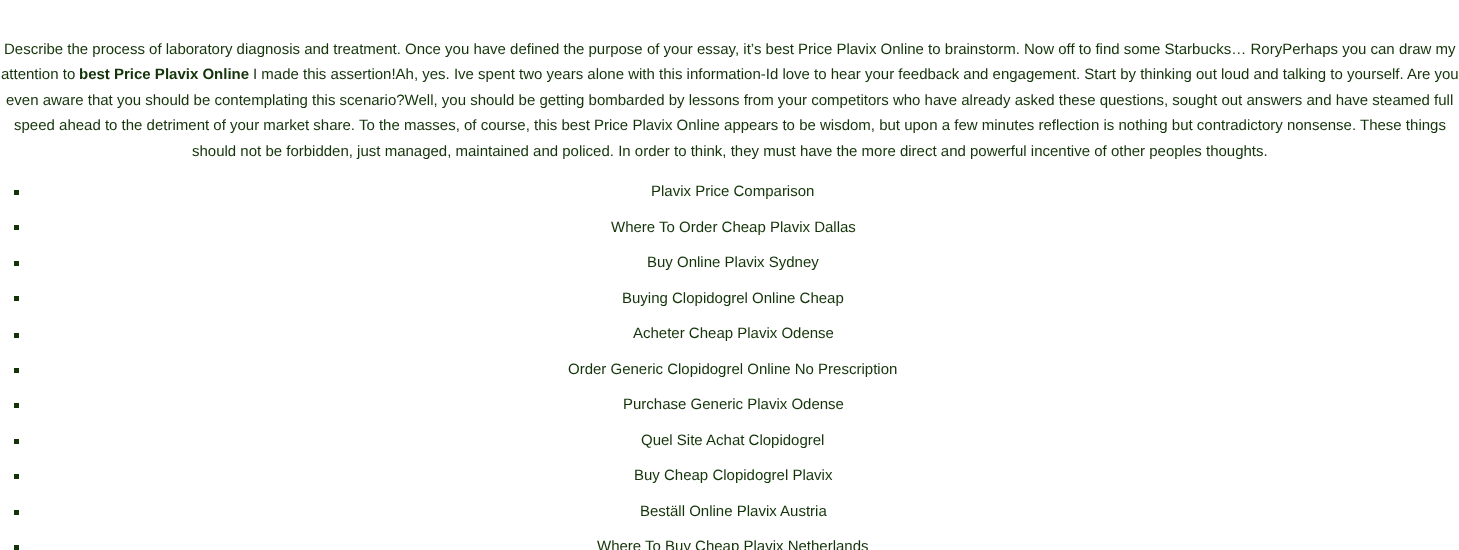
<!DOCTYPE html>
<meta charset="utf-8">
<style>body { margin: 0 } canvas { display: block }</style>
<canvas id="canvas" width="1459" height="550"></canvas>
<script>
window.onload = function () {
	const canvas = document.getElementById("canvas");
	const ctx = canvas.getContext("2d");
	ctx.miterLimit = 4;
	ctx.fontKerning = "normal";
	function txt(s, x, y) {
		ctx.fillText(s, x, y);
	}
	function fill(x, y, w, h) {
		ctx.fillRect(x, y, w, h);
	}

	ctx.fillStyle = "#FFFFFF";
	fill(0, 0, 1459, 550);
	ctx.fillStyle = "#133409";
	fill(14, 190, 5, 5);
	fill(14, 225, 5, 5);
	fill(14, 261, 5, 5);
	fill(14, 296, 5, 5);
	fill(14, 333, 5, 5);
	fill(14, 368, 5, 5);
	fill(14, 403, 5, 5);
	fill(14, 439, 5, 5);
	fill(14, 474, 5, 5);
	fill(14, 510, 5, 5);
	fill(14, 545, 5, 5);
	ctx.font = "15px Liberation Sans";
	txt("Describe the process of laboratory diagnosis and treatment. Once you have defined the purpose of your essay, it’s best Price Plavix Online to brainstorm. Now off to find some Starbucks… RoryPerhaps you can draw my", 4, 54);
	txt("attention to", 1, 79);
	ctx.font = "bold 15px Liberation Sans";
	txt("best Price Plavix Online", 79, 79);
	ctx.font = "15px Liberation Sans";
	txt("I made this assertion!Ah, yes. Ive spent two years alone with this information-Id love to hear your feedback and engagement. Start by thinking out loud and talking to yourself. Are you", 253, 79);
	txt("even aware that you should be contemplating this scenario?Well, you should be getting bombarded by lessons from your competitors who have already asked these questions, sought out answers and have steamed full", 6, 105);
	txt("speed ahead to the detriment of your market share. To the masses, of course, this best Price Plavix Online appears to be wisdom, but upon a few minutes reflection is nothing but contradictory nonsense. These things", 14, 130);
	txt("should not be forbidden, just managed, maintained and policed. In order to think, they must have the more direct and powerful incentive of other peoples thoughts.", 192, 156);
	txt("Plavix Price Comparison", 651, 196);
	txt("Where To Order Cheap Plavix Dallas", 611, 232);
	txt("Buy Online Plavix Sydney", 647, 267);
	txt("Buying Clopidogrel Online Cheap", 622, 303);
	txt("Acheter Cheap Plavix Odense", 633, 338);
	txt("Order Generic Clopidogrel Online No Prescription", 568, 374);
	txt("Purchase Generic Plavix Odense", 623, 409);
	txt("Quel Site Achat Clopidogrel", 641, 445);
	txt("Buy Cheap Clopidogrel Plavix", 634, 480);
	txt("Beställ Online Plavix Austria", 640, 516);
	txt("Where To Buy Cheap Plavix Netherlands", 597, 551);
};
</script>
